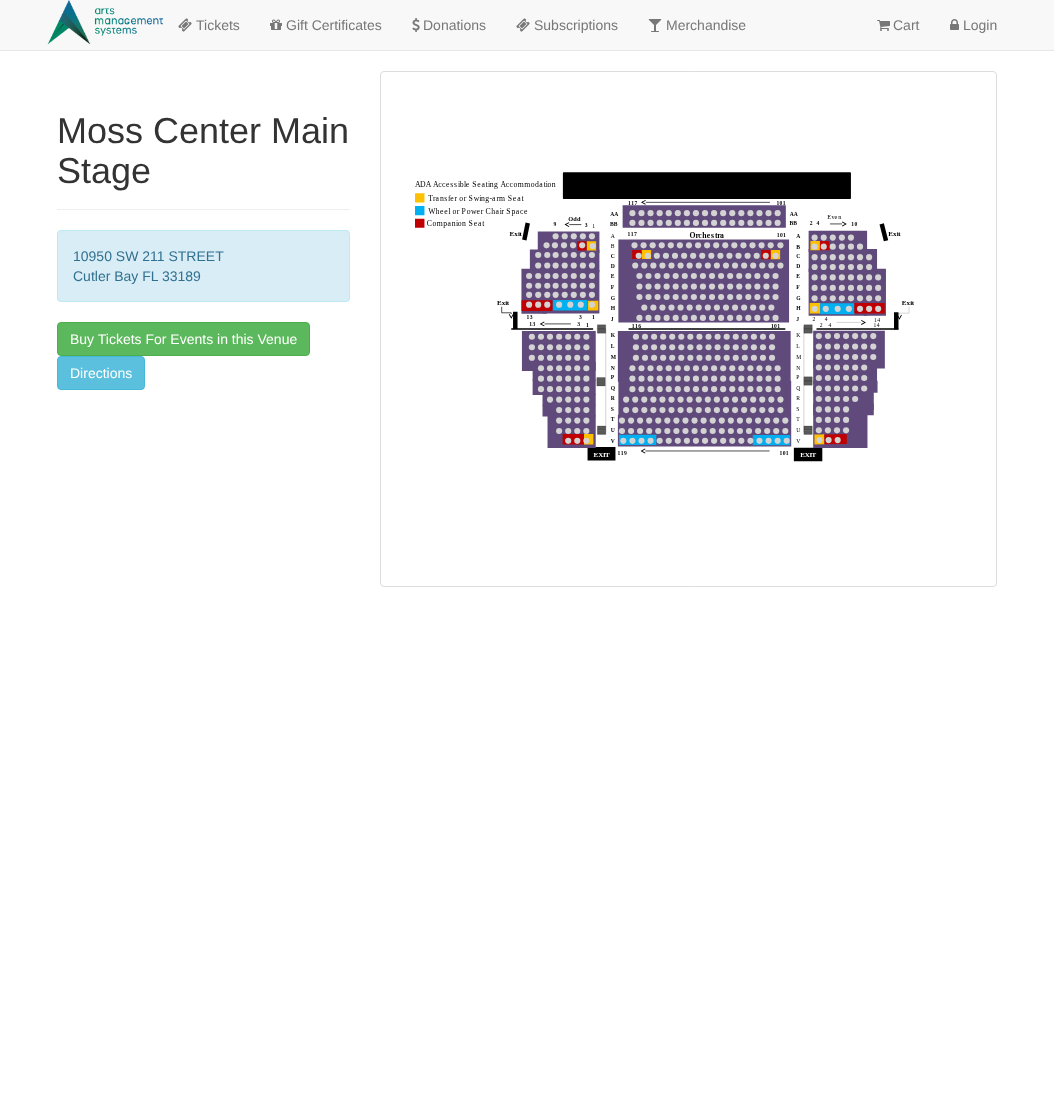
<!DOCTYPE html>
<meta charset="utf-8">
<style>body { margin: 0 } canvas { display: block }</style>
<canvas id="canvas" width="1054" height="1113"></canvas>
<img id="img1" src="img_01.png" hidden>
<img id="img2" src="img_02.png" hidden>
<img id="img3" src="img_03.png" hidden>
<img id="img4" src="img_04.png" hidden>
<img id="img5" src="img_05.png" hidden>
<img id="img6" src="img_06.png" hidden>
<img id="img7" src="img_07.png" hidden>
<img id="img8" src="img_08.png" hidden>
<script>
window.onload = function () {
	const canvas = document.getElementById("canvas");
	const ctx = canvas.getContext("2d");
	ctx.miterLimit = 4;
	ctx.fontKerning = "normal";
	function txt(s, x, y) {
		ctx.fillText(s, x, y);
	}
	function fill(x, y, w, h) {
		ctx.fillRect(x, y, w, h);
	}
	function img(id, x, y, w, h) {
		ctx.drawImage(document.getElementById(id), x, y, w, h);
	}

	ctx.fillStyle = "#FFFFFF";
	fill(0, 0, 1054, 1113);
	ctx.fillStyle = "#F8F8F8";
	fill(0, 0, 1054, 50);
	ctx.fillStyle = "#E7E7E7";
	fill(0, 50, 1054, 1);
	img("img1", 47, 0, 116, 45);
	img("img2", 178, 18, 14, 14);
	img("img3", 270, 19, 12, 11);
	img("img4", 412, 18, 8, 14);
	img("img2", 516, 18, 14, 14);
	img("img5", 648, 19, 14, 13);
	img("img6", 877, 20, 13, 11);
	img("img7", 950, 19, 9, 11);
	ctx.fillStyle = "#EEEEEE";
	fill(57, 209, 293, 1);
	ctx.fillStyle = "#D9EDF7";
	ctx.beginPath();
	ctx.roundRect(57.5, 230.5, 292, 71, 3.5);
	ctx.fill();
	ctx.strokeStyle = "#BCE8F1";
	ctx.stroke();
	ctx.fillStyle = "#5CB85C";
	ctx.beginPath();
	ctx.roundRect(57.5, 322.5, 252, 33, 3.5);
	ctx.fill();
	ctx.strokeStyle = "#4CAE4C";
	ctx.stroke();
	ctx.fillStyle = "#5BC0DE";
	ctx.beginPath();
	ctx.roundRect(57.5, 356.5, 87, 33, 3.5);
	ctx.fill();
	ctx.strokeStyle = "#46B8DA";
	ctx.stroke();
	ctx.beginPath();
	ctx.roundRect(380.5, 71.5, 616, 515, 3.5);
	ctx.strokeStyle = "#DDDDDD";
	ctx.stroke();
	img("img8", 415, 172, 499, 290);
	ctx.font = "14px Liberation Sans";
	ctx.fillStyle = "#777777";
	txt("Tickets", 196, 30);
	txt("Gift Certificates", 286, 30);
	txt("Donations", 423, 30);
	txt("Subscriptions", 534, 30);
	txt("Merchandise", 666, 30);
	txt("Cart", 893, 30);
	txt("Login", 963, 30);
	ctx.font = "36px Liberation Sans";
	ctx.fillStyle = "#333333";
	txt("Moss Center Main", 57, 143);
	txt("Stage", 57, 183);
	ctx.font = "14px Liberation Sans";
	ctx.fillStyle = "#31708F";
	txt("10950 SW 211 STREET", 73, 261);
	txt("Cutler Bay FL 33189", 73, 281);
	ctx.fillStyle = "#FFFFFF";
	txt("Buy Tickets For Events in this Venue", 70, 344);
	txt("Directions", 70, 378);
};
</script>
